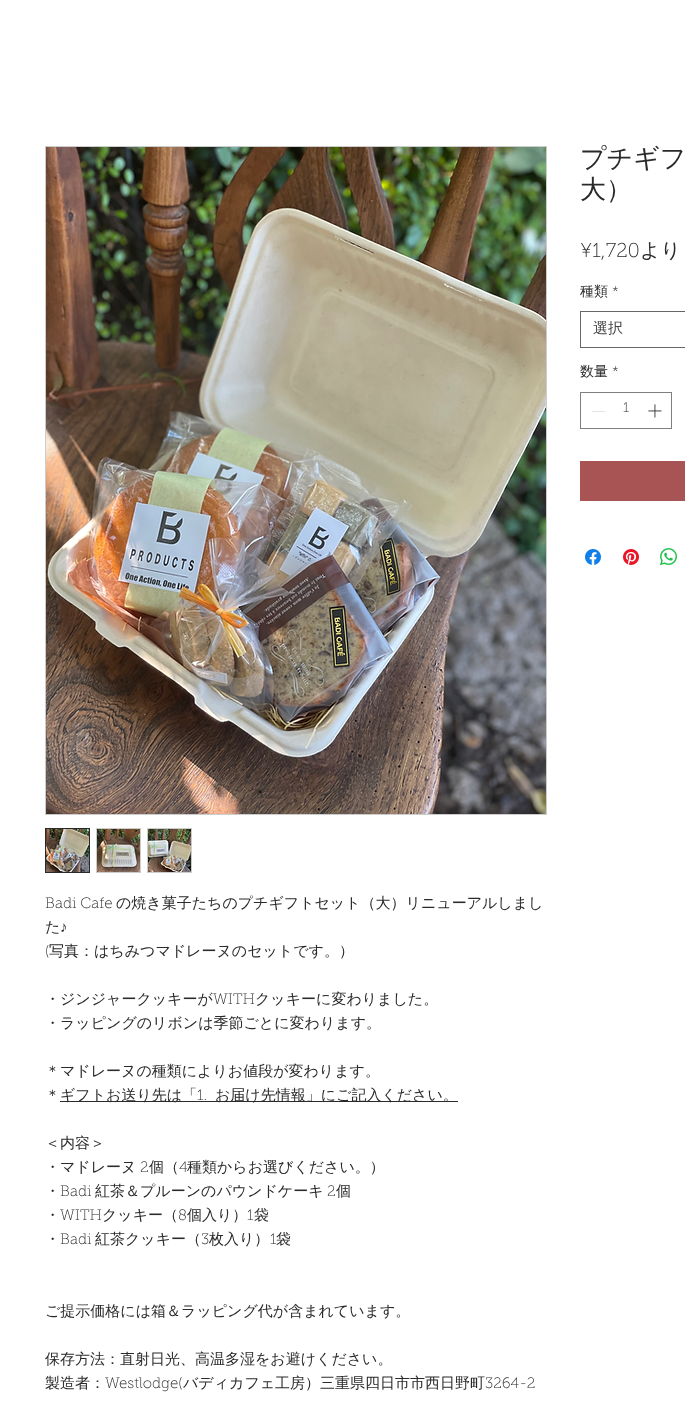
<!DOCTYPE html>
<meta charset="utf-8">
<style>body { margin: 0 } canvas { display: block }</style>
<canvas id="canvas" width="685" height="1407"></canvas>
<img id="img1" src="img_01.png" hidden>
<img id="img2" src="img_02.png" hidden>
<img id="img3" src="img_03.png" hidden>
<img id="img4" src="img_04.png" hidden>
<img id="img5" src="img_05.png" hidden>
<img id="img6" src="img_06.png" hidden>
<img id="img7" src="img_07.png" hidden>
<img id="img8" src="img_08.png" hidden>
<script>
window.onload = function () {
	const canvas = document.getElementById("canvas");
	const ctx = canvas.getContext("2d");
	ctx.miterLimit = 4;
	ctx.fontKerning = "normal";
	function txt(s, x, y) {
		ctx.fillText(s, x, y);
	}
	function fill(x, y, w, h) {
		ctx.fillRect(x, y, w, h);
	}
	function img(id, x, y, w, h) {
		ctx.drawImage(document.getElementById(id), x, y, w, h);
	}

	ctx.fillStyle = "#FFFFFF";
	fill(0, 0, 685, 1407);
	ctx.strokeStyle = "#666666";
	ctx.strokeRect(580.5, 311.5, 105, 36);
	ctx.strokeStyle = "#7F7F7F";
	ctx.strokeRect(580.5, 392.5, 91, 36);
	ctx.fillStyle = "#E3E3E3";
	fill(592, 411, 13, 1);
	img("img1", 648, 404, 14, 14);
	ctx.fillStyle = "#A85454";
	fill(580, 461, 105, 40);
	img("img2", 585, 549, 16, 16);
	img("img3", 623, 549, 16, 16);
	img("img4", 660, 548, 17, 17);
	ctx.strokeStyle = "#CCCCCC";
	ctx.strokeRect(45.5, 146.5, 501, 668);
	img("img5", 46, 147, 500, 667);
	ctx.strokeStyle = "#2A2A2A";
	ctx.strokeRect(45.5, 828.5, 44, 44);
	img("img6", 46, 829, 43, 43);
	ctx.fillStyle = "#CCCCCC";
	fill(96, 828, 45, 45);
	img("img7", 97, 829, 43, 43);
	fill(147, 828, 45, 45);
	img("img8", 148, 829, 43, 43);
	ctx.fillStyle = "#2A2A2A";
	fill(60, 1101, 398, 1);
	ctx.font = "500 26px WenQuanYi Zen Hei";
	txt("プチギフ", 580, 167);
	txt("大）", 580, 198);
	ctx.font = "100 20px 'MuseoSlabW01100'";
	txt("¥1,720", 580, 257);
	ctx.font = "500 20px WenQuanYi Zen Hei";
	txt("より", 640, 257);
	ctx.font = "500 14px WenQuanYi Zen Hei";
	txt("種類", 580, 296);
	ctx.font = "100 14px 'MuseoSlabW01100'";
	txt("*", 612, 296);
	ctx.font = "500 15px WenQuanYi Zen Hei";
	ctx.fillStyle = "#444444";
	txt("選択", 593, 333);
	ctx.font = "500 14px WenQuanYi Zen Hei";
	ctx.fillStyle = "#2A2A2A";
	txt("数量", 580, 376);
	ctx.font = "100 14px 'MuseoSlabW01100'";
	txt("*", 612, 376);
	txt("1", 623, 412);
	ctx.font = "100 15px 'MuseoSlabW01100'";
	txt("Badi Cafe", 45, 908);
	ctx.font = "500 15px WenQuanYi Zen Hei";
	txt("の焼き菓子たちのプチギフトセット（大）リニューアルしまし", 116, 908);
	txt("た", 45, 932);
	ctx.font = "15px Liberation Serif";
	txt("♪", 60, 932);
	ctx.font = "100 15px 'MuseoSlabW01100'";
	txt("(", 45, 956);
	ctx.font = "500 15px WenQuanYi Zen Hei";
	txt("写真：はちみつマドレーヌのセットです。）", 49, 956);
	txt("・ジンジャークッキーが", 45, 1004);
	ctx.font = "100 15px 'MuseoSlabW01100'";
	txt("WITH", 213, 1004);
	ctx.font = "500 15px WenQuanYi Zen Hei";
	txt("クッキーに変わりました。", 255, 1004);
	txt("・ラッピングのリボンは季節ごとに変わります。", 45, 1028);
	txt("＊マドレーヌの種類によりお値段が変わります。", 45, 1076);
	txt("＊", 45, 1100);
	txt("ギフトお送り先は「", 60, 1100);
	ctx.font = "100 15px 'MuseoSlabW01100'";
	txt("1.", 197, 1100);
	ctx.font = "500 15px WenQuanYi Zen Hei";
	txt("お届け先情報」にご記入ください。", 215, 1100);
	txt("＜内容＞", 45, 1148);
	txt("・マドレーヌ", 45, 1172);
	ctx.font = "100 15px 'MuseoSlabW01100'";
	txt("2", 140, 1172);
	ctx.font = "500 15px WenQuanYi Zen Hei";
	txt("個（", 149, 1172);
	ctx.font = "100 15px 'MuseoSlabW01100'";
	txt("4", 179, 1172);
	ctx.font = "500 15px WenQuanYi Zen Hei";
	txt("種類からお選びください。）", 187, 1172);
	txt("・", 45, 1196);
	ctx.font = "100 15px 'MuseoSlabW01100'";
	txt("Badi", 60, 1196);
	ctx.font = "500 15px WenQuanYi Zen Hei";
	txt("紅茶＆プルーンのパウンドケーキ", 95, 1196);
	ctx.font = "100 15px 'MuseoSlabW01100'";
	txt("2", 327, 1196);
	ctx.font = "500 15px WenQuanYi Zen Hei";
	txt("個", 336, 1196);
	txt("・", 45, 1220);
	ctx.font = "100 15px 'MuseoSlabW01100'";
	txt("WITH", 60, 1220);
	ctx.font = "500 15px WenQuanYi Zen Hei";
	txt("クッキー（", 102, 1220);
	ctx.font = "100 15px 'MuseoSlabW01100'";
	txt("8", 178, 1220);
	ctx.font = "500 15px WenQuanYi Zen Hei";
	txt("個入り）", 187, 1220);
	ctx.font = "100 15px 'MuseoSlabW01100'";
	txt("1", 247, 1220);
	ctx.font = "500 15px WenQuanYi Zen Hei";
	txt("袋", 254, 1220);
	txt("・", 45, 1244);
	ctx.font = "100 15px 'MuseoSlabW01100'";
	txt("Badi", 60, 1244);
	ctx.font = "500 15px WenQuanYi Zen Hei";
	txt("紅茶クッキー（", 95, 1244);
	ctx.font = "100 15px 'MuseoSlabW01100'";
	txt("3", 201, 1244);
	ctx.font = "500 15px WenQuanYi Zen Hei";
	txt("枚入り）", 209, 1244);
	ctx.font = "100 15px 'MuseoSlabW01100'";
	txt("1", 270, 1244);
	ctx.font = "500 15px WenQuanYi Zen Hei";
	txt("袋", 276, 1244);
	txt("ご提示価格には箱＆ラッピング代が含まれています。", 45, 1316);
	txt("保存方法：直射日光、高温多湿をお避けください。", 45, 1364);
	txt("製造者：", 45, 1388);
	ctx.font = "100 15px 'MuseoSlabW01100'";
	txt("Westlodge(", 105, 1388);
	ctx.font = "500 15px WenQuanYi Zen Hei";
	txt("バディカフェ工房）三重県四日市市西日野町", 183, 1388);
	ctx.font = "100 15px 'MuseoSlabW01100'";
	txt("3264-2", 485, 1388);
};
</script>
